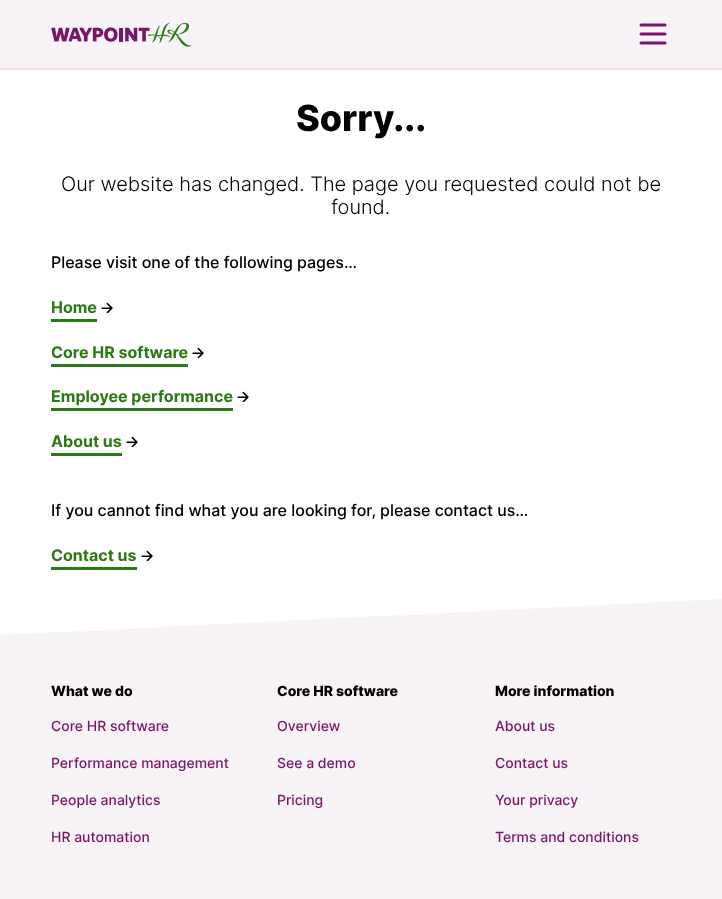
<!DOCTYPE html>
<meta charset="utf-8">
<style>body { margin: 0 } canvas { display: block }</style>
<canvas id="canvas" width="722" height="899"></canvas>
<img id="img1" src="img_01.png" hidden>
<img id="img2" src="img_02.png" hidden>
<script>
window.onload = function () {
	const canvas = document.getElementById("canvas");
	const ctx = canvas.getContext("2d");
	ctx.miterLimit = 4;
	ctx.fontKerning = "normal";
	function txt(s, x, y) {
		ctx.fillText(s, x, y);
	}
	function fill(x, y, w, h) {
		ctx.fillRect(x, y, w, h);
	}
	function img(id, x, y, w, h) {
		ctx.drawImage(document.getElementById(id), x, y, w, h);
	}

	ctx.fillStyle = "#FFFFFF";
	fill(0, 0, 722, 899);
	ctx.fillStyle = "#F8F3F7";
	fill(0, 0, 722, 68);
	ctx.fillStyle = "#EBDDE9";
	fill(0, 68, 722, 2);
	img("img1", 51, 22, 140, 25);
	ctx.beginPath();
	ctx.moveTo(641, 43);
	ctx.lineTo(665, 43);
	ctx.moveTo(641, 34);
	ctx.lineTo(665, 34);
	ctx.moveTo(641, 25);
	ctx.lineTo(665, 25);
	ctx.strokeStyle = "#781768";
	ctx.lineWidth = 3;
	ctx.lineCap = "round";
	ctx.stroke();
	ctx.fillStyle = "#2D7817";
	fill(51, 319, 46, 3);
	img("img2", 101, 302, 12, 11);
	fill(51, 364, 137, 3);
	img("img2", 192, 347, 12, 11);
	fill(51, 408, 182, 3);
	img("img2", 237, 391, 12, 11);
	fill(51, 453, 71, 3);
	img("img2", 126, 436, 12, 11);
	fill(51, 567, 86, 3);
	img("img2", 141, 550, 12, 11);
	ctx.fillStyle = "#F8F3F7";
	fill(0, 599, 722, 300);
	ctx.fillStyle = "#FFFFFF";
	ctx.beginPath();
	ctx.moveTo(0, 599);
	ctx.lineTo(722, 599);
	ctx.lineTo(0, 635);
	ctx.lineTo(0, 599);
	ctx.fill();
	ctx.font = "800 36px Inter";
	ctx.fillStyle = "#000000";
	txt("Sorry...", 296, 131);
	ctx.font = "300 20px Inter";
	txt("Our website has changed. The page you requested could not be", 61, 191);
	txt("found.", 331, 214);
	ctx.font = "500 16px Inter";
	txt("Please visit one of the following pages…", 51, 268);
	ctx.font = "bold 16px Inter";
	ctx.fillStyle = "#2D7817";
	txt("Home", 51, 313);
	txt("Core HR software", 51, 358);
	txt("Employee performance", 51, 402);
	txt("About us", 51, 447);
	ctx.font = "500 16px Inter";
	ctx.fillStyle = "#000000";
	txt("If you cannot find what you are looking for, please contact us…", 51, 516);
	ctx.font = "bold 16px Inter";
	ctx.fillStyle = "#2D7817";
	txt("Contact us", 51, 561);
	ctx.font = "800 14px Inter";
	ctx.fillStyle = "#000000";
	txt("What we do", 51, 696);
	ctx.font = "500 14px Inter";
	ctx.fillStyle = "#781768";
	txt("Core HR software", 51, 731);
	txt("Performance management", 51, 768);
	txt("People analytics", 51, 805);
	txt("HR automation", 51, 842);
	ctx.font = "800 14px Inter";
	ctx.fillStyle = "#000000";
	txt("Core HR software", 277, 696);
	ctx.font = "500 14px Inter";
	ctx.fillStyle = "#781768";
	txt("Overview", 277, 731);
	txt("See a demo", 277, 768);
	txt("Pricing", 277, 805);
	ctx.font = "800 14px Inter";
	ctx.fillStyle = "#000000";
	txt("More information", 495, 696);
	ctx.font = "500 14px Inter";
	ctx.fillStyle = "#781768";
	txt("About us", 495, 731);
	txt("Contact us", 495, 768);
	txt("Your privacy", 495, 805);
	txt("Terms and conditions", 495, 842);
};
</script>
